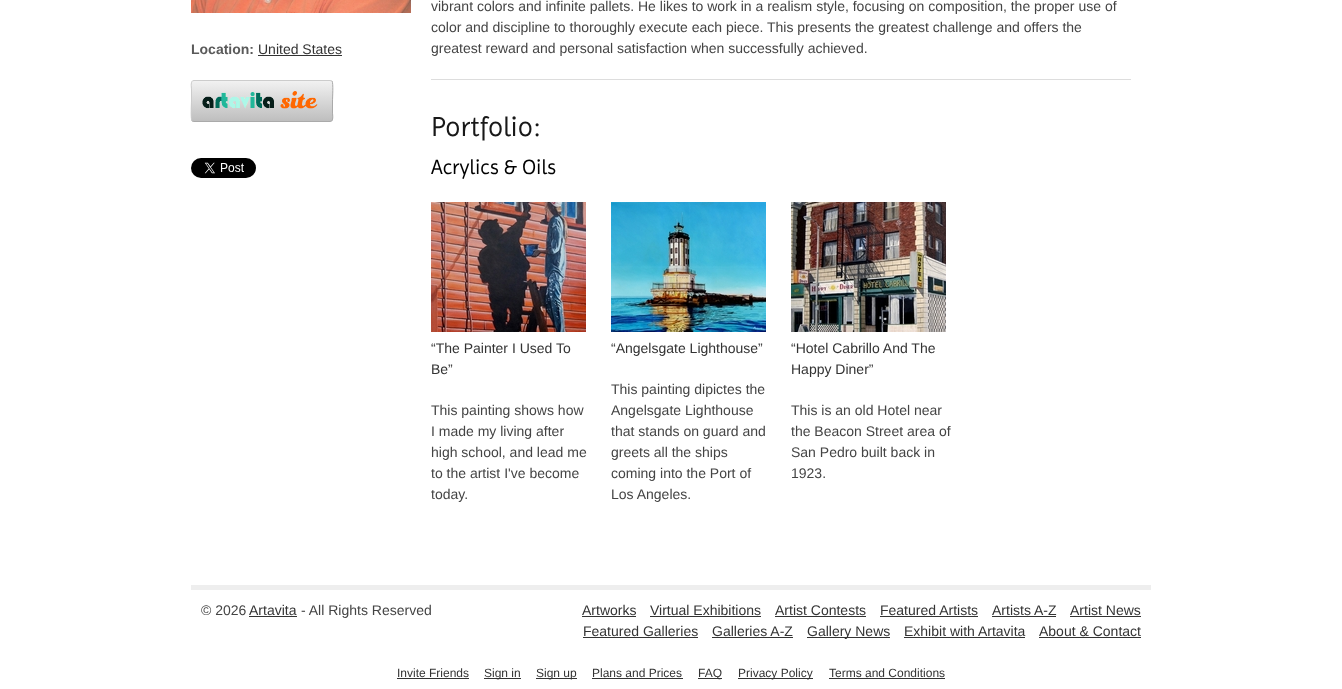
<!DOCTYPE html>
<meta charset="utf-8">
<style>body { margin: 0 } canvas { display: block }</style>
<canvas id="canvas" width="1342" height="689"></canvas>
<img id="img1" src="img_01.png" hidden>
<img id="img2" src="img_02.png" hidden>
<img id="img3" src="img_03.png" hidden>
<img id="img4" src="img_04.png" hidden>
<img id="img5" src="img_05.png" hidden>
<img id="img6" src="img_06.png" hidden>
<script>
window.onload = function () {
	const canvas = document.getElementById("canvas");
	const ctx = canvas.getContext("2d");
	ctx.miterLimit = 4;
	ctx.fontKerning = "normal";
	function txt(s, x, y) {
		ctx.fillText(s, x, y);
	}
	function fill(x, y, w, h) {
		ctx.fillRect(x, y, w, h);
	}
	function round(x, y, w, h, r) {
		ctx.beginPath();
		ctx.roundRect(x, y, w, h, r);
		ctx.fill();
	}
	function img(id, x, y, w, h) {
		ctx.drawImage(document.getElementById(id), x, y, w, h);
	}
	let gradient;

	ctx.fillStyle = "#FFFFFF";
	fill(0, 0, 1342, 689);
	img("img1", 191, 0, 220, 13);
	ctx.fillStyle = "#333333";
	fill(258, 55, 84, 1);
	ctx.fillStyle = "#EEEEEE";
	round(191, 80, 142, 42, 3);
	ctx.save();
	ctx.beginPath();
	ctx.roundRect(191, 80, 142, 42, 3);
	ctx.clip();
	gradient = ctx.createLinearGradient(262, 81, 262, 121);
	gradient.addColorStop(0, "rgba(255, 255, 255, 0.2)");
	gradient.addColorStop(1, "rgba(0, 0, 0, 0.2)");
	ctx.fillStyle = gradient;
	fill(191, 81, 142, 40);
	ctx.restore();
	ctx.beginPath();
	ctx.moveTo(332, 81);
	ctx.bezierCurveTo(333.5, 83, 332.5, 98, 332.5, 101);
	ctx.lineTo(332.5, 113);
	ctx.bezierCurveTo(332.5, 114.5, 334, 121.5, 330, 121.5);
	ctx.lineTo(194, 121.5);
	ctx.lineTo(192, 121);
	ctx.strokeStyle = "#AAAAAA";
	ctx.stroke();
	ctx.beginPath();
	ctx.moveTo(192, 121);
	ctx.bezierCurveTo(190.5, 119, 191.5, 104, 191.5, 101);
	ctx.lineTo(191.5, 89);
	ctx.bezierCurveTo(191.5, 87.5, 190, 80.5, 194, 80.5);
	ctx.lineTo(330, 80.5);
	ctx.lineTo(332, 81);
	ctx.strokeStyle = "#CCCCCC";
	ctx.stroke();
	img("img2", 202, 91, 116, 18);
	img("img3", 191, 158, 65, 20);
	ctx.fillStyle = "#DDDDDD";
	fill(431, 79, 700, 1);
	img("img4", 431, 202, 155, 130);
	img("img5", 611, 202, 155, 130);
	img("img6", 791, 202, 155, 130);
	ctx.fillStyle = "#EEEEEE";
	fill(191, 585, 960, 5);
	ctx.fillStyle = "#333333";
	fill(249, 616, 48, 1);
	fill(582, 616, 54, 1);
	fill(650, 616, 111, 1);
	fill(775, 616, 91, 1);
	fill(880, 616, 98, 1);
	fill(992, 616, 64, 1);
	fill(1070, 616, 71, 1);
	fill(583, 637, 115, 1);
	fill(712, 637, 81, 1);
	fill(807, 637, 83, 1);
	fill(904, 637, 121, 1);
	fill(1039, 637, 102, 1);
	fill(397, 678, 72, 1);
	fill(484, 678, 37, 1);
	fill(536, 678, 41, 1);
	fill(592, 678, 91, 1);
	fill(698, 678, 24, 1);
	fill(738, 678, 75, 1);
	fill(829, 678, 116, 1);
	ctx.font = "bold 14px Liberation Sans";
	ctx.fillStyle = "#5A5A5A";
	txt("Location:", 191, 54);
	ctx.font = "14px Liberation Sans";
	ctx.fillStyle = "#333333";
	txt("United States", 258, 54);
	ctx.fillStyle = "#444444";
	txt("vibrant colors and infinite pallets. He likes to work in a realism style, focusing on composition, the proper use of", 431, 11);
	txt("color and discipline to thoroughly execute each piece. This presents the greatest challenge and offers the", 431, 32);
	txt("greatest reward and personal satisfaction when successfully achieved.", 431, 53);
	ctx.font = "28px Imprima";
	ctx.fillStyle = "#181818";
	txt("Portfolio:", 431, 136);
	ctx.font = "21px Imprima";
	ctx.fillStyle = "#000000";
	txt("Acrylics & Oils", 431, 174);
	ctx.font = "14px Liberation Sans";
	ctx.fillStyle = "#333333";
	txt("“The Painter I Used To", 431, 353);
	txt("Be”", 431, 374);
	ctx.fillStyle = "#444444";
	txt("This painting shows how", 431, 415);
	txt("I made my living after", 431, 436);
	txt("high school, and lead me", 431, 457);
	txt("to the artist I've become", 431, 478);
	txt("today.", 431, 499);
	ctx.fillStyle = "#333333";
	txt("“Angelsgate Lighthouse”", 611, 353);
	ctx.fillStyle = "#444444";
	txt("This painting dipictes the", 611, 394);
	txt("Angelsgate Lighthouse", 611, 415);
	txt("that stands on guard and", 611, 436);
	txt("greets all the ships", 611, 457);
	txt("coming into the Port of", 611, 478);
	txt("Los Angeles.", 611, 499);
	ctx.fillStyle = "#333333";
	txt("“Hotel Cabrillo And The", 791, 353);
	txt("Happy Diner”", 791, 374);
	ctx.fillStyle = "#444444";
	txt("This is an old Hotel near", 791, 415);
	txt("the Beacon Street area of", 791, 436);
	txt("San Pedro built back in", 791, 457);
	txt("1923.", 791, 478);
	txt("© 2026", 201, 615);
	ctx.fillStyle = "#333333";
	txt("Artavita", 249, 615);
	ctx.fillStyle = "#444444";
	txt("- All Rights Reserved", 301, 615);
	ctx.fillStyle = "#333333";
	txt("Artworks", 582, 615);
	txt("Virtual Exhibitions", 650, 615);
	txt("Artist Contests", 775, 615);
	txt("Featured Artists", 880, 615);
	txt("Artists A-Z", 992, 615);
	txt("Artist News", 1070, 615);
	txt("Featured Galleries", 583, 636);
	txt("Galleries A-Z", 712, 636);
	txt("Gallery News", 807, 636);
	txt("Exhibit with Artavita", 904, 636);
	txt("About & Contact", 1039, 636);
	ctx.font = "12px Liberation Sans";
	txt("Invite Friends", 397, 677);
	txt("Sign in", 484, 677);
	txt("Sign up", 536, 677);
	txt("Plans and Prices", 592, 677);
	txt("FAQ", 698, 677);
	txt("Privacy Policy", 738, 677);
	txt("Terms and Conditions", 829, 677);
};
</script>
